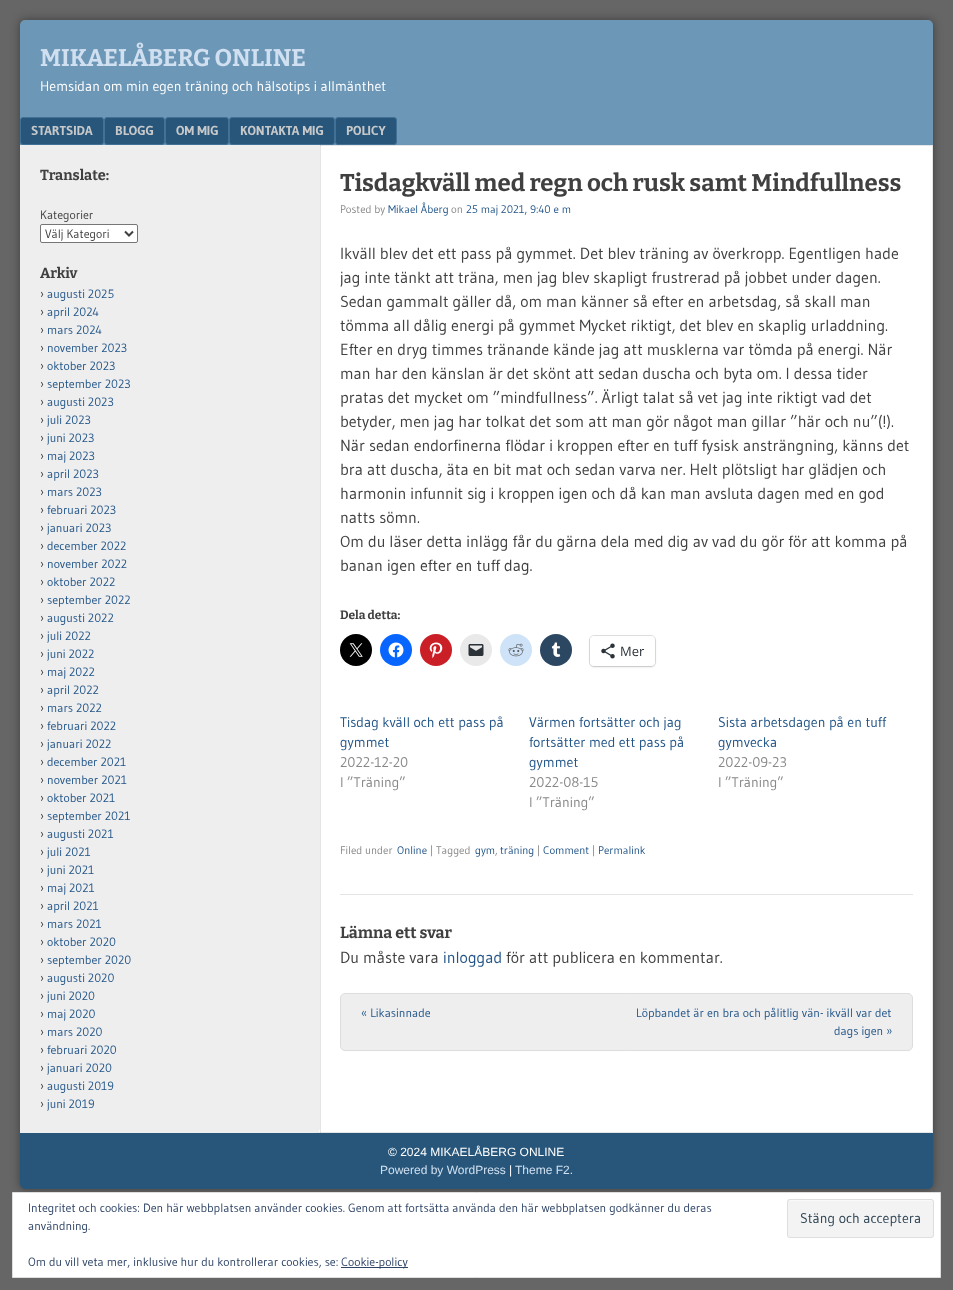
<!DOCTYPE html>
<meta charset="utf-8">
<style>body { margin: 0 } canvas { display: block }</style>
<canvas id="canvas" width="953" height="1290"></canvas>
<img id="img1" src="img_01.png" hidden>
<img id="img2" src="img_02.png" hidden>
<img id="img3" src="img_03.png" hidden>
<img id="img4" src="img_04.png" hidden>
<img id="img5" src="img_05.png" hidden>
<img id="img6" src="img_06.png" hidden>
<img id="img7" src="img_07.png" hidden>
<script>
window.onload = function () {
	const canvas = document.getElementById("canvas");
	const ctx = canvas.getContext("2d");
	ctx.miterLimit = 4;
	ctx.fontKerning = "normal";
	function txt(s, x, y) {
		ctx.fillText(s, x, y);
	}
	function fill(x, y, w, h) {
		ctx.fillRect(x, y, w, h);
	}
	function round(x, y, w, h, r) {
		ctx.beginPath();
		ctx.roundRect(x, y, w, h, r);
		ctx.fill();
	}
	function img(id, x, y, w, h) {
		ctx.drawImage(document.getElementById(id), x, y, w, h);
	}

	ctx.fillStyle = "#666666";
	fill(0, 0, 953, 1290);
	ctx.fillStyle = "rgba(0, 0, 0, 0.4)";
	ctx.filter = "blur(5px)";
	ctx.beginPath();
	ctx.roundRect(20, 20, 913, 1169, 5);
	ctx.fill();
	ctx.filter = "none";
	ctx.fillStyle = "#6D97B7";
	ctx.beginPath();
	ctx.roundRect(20, 20, 913, 125, [5, 5, 0, 0]);
	ctx.fill();
	ctx.fillStyle = "#27567A";
	ctx.beginPath();
	ctx.roundRect(20.5, 117.5, 83, 27, 2.5);
	ctx.fill();
	ctx.strokeStyle = "#417196";
	ctx.stroke();
	ctx.beginPath();
	ctx.roundRect(104.5, 117.5, 60, 27, 2.5);
	ctx.fill();
	ctx.stroke();
	ctx.beginPath();
	ctx.roundRect(165.5, 117.5, 63, 27, 2.5);
	ctx.fill();
	ctx.stroke();
	ctx.beginPath();
	ctx.roundRect(229.5, 117.5, 105, 27, 2.5);
	ctx.fill();
	ctx.stroke();
	ctx.beginPath();
	ctx.roundRect(335.5, 117.5, 61, 27, 2.5);
	ctx.fill();
	ctx.stroke();
	ctx.fillStyle = "#FFFFFF";
	fill(318, 146, 614, 986);
	ctx.strokeStyle = "#E6E6E6";
	ctx.strokeRect(20.5, 145.5, 912, 987);
	ctx.save();
	ctx.beginPath();
	ctx.rect(20, 145, 913, 988);
	ctx.clip();
	ctx.fillStyle = "rgba(0, 0, 0, 0.1)";
	ctx.beginPath();
	ctx.moveTo(20, 145);
	ctx.lineTo(320, 145);
	ctx.lineTo(320, 1133);
	ctx.lineTo(20, 1133);
	ctx.lineTo(20, 1134);
	ctx.lineTo(321, 1134);
	ctx.lineTo(321, 144);
	ctx.lineTo(20, 144);
	ctx.closePath();
	ctx.fill();
	ctx.restore();
	ctx.fillStyle = "#EEEEEE";
	fill(20, 145, 300, 118);
	ctx.fillStyle = "#FFFFFF";
	ctx.beginPath();
	ctx.roundRect(40.5, 224.5, 97, 18, 1.5);
	ctx.fill();
	ctx.strokeStyle = "#767676";
	ctx.stroke();
	ctx.beginPath();
	ctx.moveTo(125, 231.5);
	ctx.lineTo(129, 235.5);
	ctx.lineTo(133, 231.5);
	ctx.strokeStyle = "#404040";
	ctx.lineWidth = 2;
	ctx.stroke();
	ctx.fillStyle = "#EEEEEE";
	ctx.beginPath();
	ctx.roundRect(20, 263, 300, 870, [0, 0, 5, 0]);
	ctx.fill();
	ctx.fillStyle = "#E4E4E4";
	fill(340, 894, 573, 1);
	ctx.fillStyle = "#000000";
	ctx.beginPath();
	ctx.arc(356, 650, 16, 0, Math.PI * 2);
	ctx.fill();
	img("img1", 349, 643, 14, 14);
	ctx.fillStyle = "#0866FF";
	ctx.beginPath();
	ctx.arc(396, 650, 16, 0, Math.PI * 2);
	ctx.fill();
	img("img2", 388, 642, 16, 16);
	ctx.fillStyle = "#CA1F27";
	ctx.beginPath();
	ctx.arc(436, 650, 16, 0, Math.PI * 2);
	ctx.fill();
	img("img3", 429, 642, 14, 16);
	ctx.fillStyle = "#E9E9E9";
	ctx.beginPath();
	ctx.arc(476, 650, 16, 0, Math.PI * 2);
	ctx.fill();
	img("img4", 468, 644, 16, 12);
	ctx.fillStyle = "#CEE3F8";
	ctx.beginPath();
	ctx.arc(516, 650, 16, 0, Math.PI * 2);
	ctx.fill();
	img("img5", 508, 643, 16, 14);
	ctx.fillStyle = "#2C4762";
	ctx.beginPath();
	ctx.arc(556, 650, 16, 0, Math.PI * 2);
	ctx.fill();
	img("img6", 551, 642, 10, 15);
	ctx.beginPath();
	ctx.roundRect(589.5, 635.5, 66, 31, 4.5);
	ctx.strokeStyle = "#E0E0E0";
	ctx.lineWidth = 1;
	ctx.stroke();
	ctx.fillStyle = "rgba(0, 0, 0, 0.12)";
	ctx.filter = "blur(1px)";
	ctx.beginPath();
	ctx.roundRect(590, 637, 65, 30, 4);
	ctx.fill();
	ctx.filter = "none";
	ctx.fillStyle = "#FFFFFF";
	round(590, 636, 65, 30, 4);
	img("img7", 601, 643, 14, 16);
	ctx.fillStyle = "#EEEEEE";
	ctx.beginPath();
	ctx.roundRect(340.5, 993.5, 572, 57, 4.5);
	ctx.fill();
	ctx.strokeStyle = "#DDDDDD";
	ctx.stroke();
	ctx.fillStyle = "#27567A";
	ctx.beginPath();
	ctx.roundRect(20, 1133, 913, 56, [0, 0, 5, 5]);
	ctx.fill();
	ctx.fillStyle = "#FFFFFF";
	ctx.beginPath();
	ctx.rect(12.5, 1192.5, 928, 85);
	ctx.fill();
	ctx.strokeStyle = "#DEDEDE";
	ctx.stroke();
	ctx.fillStyle = "#F3F3F3";
	round(787, 1199, 147, 39, 3);
	ctx.fillStyle = "#F9F9F9";
	ctx.beginPath();
	ctx.moveTo(790, 1201);
	ctx.lineTo(931, 1201);
	ctx.bezierCurveTo(932, 1201, 933, 1202, 933, 1203);
	ctx.bezierCurveTo(933, 1202, 933, 1201, 932, 1200);
	ctx.lineTo(814, 1200);
	ctx.bezierCurveTo(810, 1200, 788, 1195, 788, 1203);
	ctx.bezierCurveTo(788, 1202, 789, 1201, 790, 1201);
	ctx.closePath();
	ctx.fill();
	ctx.beginPath();
	ctx.roundRect(787.5, 1199.5, 146, 38, 2.5);
	ctx.stroke();
	ctx.fillStyle = "#2E4467";
	fill(341, 1267, 67, 1);
	ctx.font = "100 24px Bitter";
	ctx.fillStyle = "#D0E0F0";
	txt("MIKAELÅBERG ONLINE", 40, 66);
	ctx.font = "14px Gudea";
	ctx.fillStyle = "#FFFFFF";
	txt("Hemsidan om min egen träning och hälsotips i allmänthet", 40, 91);
	ctx.font = "bold 13px Gudea";
	ctx.fillStyle = "#C6C8C9";
	txt("STARTSIDA", 31, 135);
	txt("BLOGG", 115, 135);
	txt("OM MIG", 176, 135);
	txt("KONTAKTA MIG", 240, 135);
	txt("POLICY", 346, 135);
	ctx.font = "100 14.5px Bitter";
	ctx.fillStyle = "#404040";
	txt("Translate:", 40, 180);
	ctx.font = "12px Gudea";
	txt("Kategorier", 40, 219);
	txt("Välj Kategori", 45, 238);
	ctx.font = "100 14.5px Bitter";
	txt("Arkiv", 40, 278);
	ctx.font = "12px Gudea";
	txt("›", 40, 298);
	ctx.fillStyle = "#225588";
	txt("augusti 2025", 47, 298);
	ctx.fillStyle = "#404040";
	txt("›", 40, 316);
	ctx.fillStyle = "#225588";
	txt("april 2024", 47, 316);
	ctx.fillStyle = "#404040";
	txt("›", 40, 334);
	ctx.fillStyle = "#225588";
	txt("mars 2024", 47, 334);
	ctx.fillStyle = "#404040";
	txt("›", 40, 352);
	ctx.fillStyle = "#225588";
	txt("november 2023", 47, 352);
	ctx.fillStyle = "#404040";
	txt("›", 40, 370);
	ctx.fillStyle = "#225588";
	txt("oktober 2023", 47, 370);
	ctx.fillStyle = "#404040";
	txt("›", 40, 388);
	ctx.fillStyle = "#225588";
	txt("september 2023", 47, 388);
	ctx.fillStyle = "#404040";
	txt("›", 40, 406);
	ctx.fillStyle = "#225588";
	txt("augusti 2023", 47, 406);
	ctx.fillStyle = "#404040";
	txt("›", 40, 424);
	ctx.fillStyle = "#225588";
	txt("juli 2023", 47, 424);
	ctx.fillStyle = "#404040";
	txt("›", 40, 442);
	ctx.fillStyle = "#225588";
	txt("juni 2023", 47, 442);
	ctx.fillStyle = "#404040";
	txt("›", 40, 460);
	ctx.fillStyle = "#225588";
	txt("maj 2023", 47, 460);
	ctx.fillStyle = "#404040";
	txt("›", 40, 478);
	ctx.fillStyle = "#225588";
	txt("april 2023", 47, 478);
	ctx.fillStyle = "#404040";
	txt("›", 40, 496);
	ctx.fillStyle = "#225588";
	txt("mars 2023", 47, 496);
	ctx.fillStyle = "#404040";
	txt("›", 40, 514);
	ctx.fillStyle = "#225588";
	txt("februari 2023", 47, 514);
	ctx.fillStyle = "#404040";
	txt("›", 40, 532);
	ctx.fillStyle = "#225588";
	txt("januari 2023", 47, 532);
	ctx.fillStyle = "#404040";
	txt("›", 40, 550);
	ctx.fillStyle = "#225588";
	txt("december 2022", 47, 550);
	ctx.fillStyle = "#404040";
	txt("›", 40, 568);
	ctx.fillStyle = "#225588";
	txt("november 2022", 47, 568);
	ctx.fillStyle = "#404040";
	txt("›", 40, 586);
	ctx.fillStyle = "#225588";
	txt("oktober 2022", 47, 586);
	ctx.fillStyle = "#404040";
	txt("›", 40, 604);
	ctx.fillStyle = "#225588";
	txt("september 2022", 47, 604);
	ctx.fillStyle = "#404040";
	txt("›", 40, 622);
	ctx.fillStyle = "#225588";
	txt("augusti 2022", 47, 622);
	ctx.fillStyle = "#404040";
	txt("›", 40, 640);
	ctx.fillStyle = "#225588";
	txt("juli 2022", 47, 640);
	ctx.fillStyle = "#404040";
	txt("›", 40, 658);
	ctx.fillStyle = "#225588";
	txt("juni 2022", 47, 658);
	ctx.fillStyle = "#404040";
	txt("›", 40, 676);
	ctx.fillStyle = "#225588";
	txt("maj 2022", 47, 676);
	ctx.fillStyle = "#404040";
	txt("›", 40, 694);
	ctx.fillStyle = "#225588";
	txt("april 2022", 47, 694);
	ctx.fillStyle = "#404040";
	txt("›", 40, 712);
	ctx.fillStyle = "#225588";
	txt("mars 2022", 47, 712);
	ctx.fillStyle = "#404040";
	txt("›", 40, 730);
	ctx.fillStyle = "#225588";
	txt("februari 2022", 47, 730);
	ctx.fillStyle = "#404040";
	txt("›", 40, 748);
	ctx.fillStyle = "#225588";
	txt("januari 2022", 47, 748);
	ctx.fillStyle = "#404040";
	txt("›", 40, 766);
	ctx.fillStyle = "#225588";
	txt("december 2021", 47, 766);
	ctx.fillStyle = "#404040";
	txt("›", 40, 784);
	ctx.fillStyle = "#225588";
	txt("november 2021", 47, 784);
	ctx.fillStyle = "#404040";
	txt("›", 40, 802);
	ctx.fillStyle = "#225588";
	txt("oktober 2021", 47, 802);
	ctx.fillStyle = "#404040";
	txt("›", 40, 820);
	ctx.fillStyle = "#225588";
	txt("september 2021", 47, 820);
	ctx.fillStyle = "#404040";
	txt("›", 40, 838);
	ctx.fillStyle = "#225588";
	txt("augusti 2021", 47, 838);
	ctx.fillStyle = "#404040";
	txt("›", 40, 856);
	ctx.fillStyle = "#225588";
	txt("juli 2021", 47, 856);
	ctx.fillStyle = "#404040";
	txt("›", 40, 874);
	ctx.fillStyle = "#225588";
	txt("juni 2021", 47, 874);
	ctx.fillStyle = "#404040";
	txt("›", 40, 892);
	ctx.fillStyle = "#225588";
	txt("maj 2021", 47, 892);
	ctx.fillStyle = "#404040";
	txt("›", 40, 910);
	ctx.fillStyle = "#225588";
	txt("april 2021", 47, 910);
	ctx.fillStyle = "#404040";
	txt("›", 40, 928);
	ctx.fillStyle = "#225588";
	txt("mars 2021", 47, 928);
	ctx.fillStyle = "#404040";
	txt("›", 40, 946);
	ctx.fillStyle = "#225588";
	txt("oktober 2020", 47, 946);
	ctx.fillStyle = "#404040";
	txt("›", 40, 964);
	ctx.fillStyle = "#225588";
	txt("september 2020", 47, 964);
	ctx.fillStyle = "#404040";
	txt("›", 40, 982);
	ctx.fillStyle = "#225588";
	txt("augusti 2020", 47, 982);
	ctx.fillStyle = "#404040";
	txt("›", 40, 1000);
	ctx.fillStyle = "#225588";
	txt("juni 2020", 47, 1000);
	ctx.fillStyle = "#404040";
	txt("›", 40, 1018);
	ctx.fillStyle = "#225588";
	txt("maj 2020", 47, 1018);
	ctx.fillStyle = "#404040";
	txt("›", 40, 1036);
	ctx.fillStyle = "#225588";
	txt("mars 2020", 47, 1036);
	ctx.fillStyle = "#404040";
	txt("›", 40, 1054);
	ctx.fillStyle = "#225588";
	txt("februari 2020", 47, 1054);
	ctx.fillStyle = "#404040";
	txt("›", 40, 1072);
	ctx.fillStyle = "#225588";
	txt("januari 2020", 47, 1072);
	ctx.fillStyle = "#404040";
	txt("›", 40, 1090);
	ctx.fillStyle = "#225588";
	txt("augusti 2019", 47, 1090);
	ctx.fillStyle = "#404040";
	txt("›", 40, 1108);
	ctx.fillStyle = "#225588";
	txt("juni 2019", 47, 1108);
	ctx.font = "100 24px Bitter";
	ctx.fillStyle = "#404040";
	txt("Tisdagkväll med regn och rusk samt Mindfullness", 340, 191);
	ctx.font = "11px Gudea";
	ctx.fillStyle = "#888888";
	txt("Posted by", 340, 213);
	ctx.fillStyle = "#225588";
	txt("Mikael Åberg", 388, 213);
	ctx.fillStyle = "#888888";
	txt("on", 451, 213);
	ctx.fillStyle = "#225588";
	txt("25 maj 2021, 9:40 e m", 466, 213);
	ctx.font = "16px Gudea";
	ctx.fillStyle = "#404040";
	txt("Ikväll blev det ett pass på gymmet. Det blev träning av överkropp. Egentligen hade", 340, 259);
	txt("jag inte tänkt att träna, men jag blev skapligt frustrerad på jobbet under dagen.", 340, 283);
	txt("Sedan gammalt gäller då, om man känner så efter en arbetsdag, så skall man", 340, 307);
	txt("tömma all dålig energi på gymmet Mycket riktigt, det blev en skaplig urladdning.", 340, 331);
	txt("Efter en dryg timmes tränande kände jag att musklerna var tömda på energi. När", 340, 355);
	txt("man har den känslan är det skönt att sedan duscha och byta om. I dessa tider", 340, 379);
	txt("pratas det mycket om ”mindfullness”. Ärligt talat så vet jag inte riktigt vad det", 340, 403);
	txt("betyder, men jag har tolkat det som att man gör något man gillar ”här och nu”(!).", 340, 427);
	txt("När sedan endorfinerna flödar i kroppen efter en tuff fysisk ansträngning, känns det", 340, 451);
	txt("bra att duscha, äta en bit mat och sedan varva ner. Helt plötsligt har glädjen och", 340, 475);
	txt("harmonin infunnit sig i kroppen igen och då kan man avsluta dagen med en god", 340, 499);
	txt("natts sömn.", 340, 523);
	txt("Om du läser detta inlägg får du gärna dela med dig av vad du gör för att komma på", 340, 547);
	txt("banan igen efter en tuff dag.", 340, 571);
	ctx.font = "100 12px Bitter";
	txt("Dela detta:", 340, 619);
	ctx.font = "13px Open Sans";
	ctx.fillStyle = "#2C3338";
	txt("Mer", 620, 656);
	ctx.font = "14px Gudea";
	ctx.fillStyle = "#225588";
	txt("Tisdag kväll och ett pass på", 340, 727);
	txt("gymmet", 340, 747);
	ctx.fillStyle = "#888888";
	txt("2022-12-20", 340, 767);
	txt("I ”Träning”", 340, 787);
	ctx.fillStyle = "#225588";
	txt("Värmen fortsätter och jag", 529, 727);
	txt("fortsätter med ett pass på", 529, 747);
	txt("gymmet", 529, 767);
	ctx.fillStyle = "#888888";
	txt("2022-08-15", 529, 787);
	txt("I ”Träning”", 529, 807);
	ctx.fillStyle = "#225588";
	txt("Sista arbetsdagen på en tuff", 718, 727);
	txt("gymvecka", 718, 747);
	ctx.fillStyle = "#888888";
	txt("2022-09-23", 718, 767);
	txt("I ”Träning”", 718, 787);
	ctx.font = "11px Gudea";
	txt("Filed under", 340, 854);
	ctx.fillStyle = "#225588";
	txt("Online", 397, 854);
	ctx.fillStyle = "#888888";
	txt("| Tagged", 430, 854);
	ctx.fillStyle = "#225588";
	txt("gym", 475, 854);
	ctx.fillStyle = "#888888";
	txt(",", 495, 854);
	ctx.fillStyle = "#225588";
	txt("träning", 500, 854);
	ctx.fillStyle = "#888888";
	txt("|", 537, 854);
	ctx.fillStyle = "#225588";
	txt("Comment", 543, 854);
	ctx.fillStyle = "#888888";
	txt("|", 592, 854);
	ctx.fillStyle = "#225588";
	txt("Permalink", 598, 854);
	ctx.font = "100 16px Bitter";
	ctx.fillStyle = "#404040";
	txt("Lämna ett svar", 340, 938);
	ctx.font = "16px Gudea";
	txt("Du måste vara", 340, 963);
	ctx.fillStyle = "#225588";
	txt("inloggad", 443, 963);
	ctx.fillStyle = "#404040";
	txt("för att publicera en kommentar.", 506, 963);
	ctx.font = "12px Gudea";
	ctx.fillStyle = "#225588";
	txt("« Likasinnade", 361, 1017);
	txt("Löpbandet är en bra och pålitlig vän- ikväll var det", 636, 1017);
	txt("dags igen »", 834, 1035);
	ctx.font = "12px Liberation Sans";
	ctx.fillStyle = "#FFFFFF";
	txt("© 2024 MIKAELÅBERG ONLINE", 388, 1156);
	ctx.fillStyle = "#D0E0F0";
	txt("Powered by WordPress", 380, 1174);
	ctx.fillStyle = "#FFFFFF";
	txt("|", 509, 1174);
	ctx.fillStyle = "#D0E0F0";
	txt("Theme F2.", 515, 1174);
	ctx.font = "12px Gudea";
	ctx.fillStyle = "#2E4467";
	txt("Integritet och cookies: Den här webbplatsen använder cookies. Genom att fortsätta använda den här webbplatsen godkänner du deras", 28, 1212);
	txt("användning.", 28, 1230);
	ctx.font = "14px Gudea";
	ctx.fillStyle = "#2E4453";
	txt("Stäng och acceptera", 800, 1223);
	ctx.font = "12px Gudea";
	ctx.fillStyle = "#2E4467";
	txt("Om du vill veta mer, inklusive hur du kontrollerar cookies, se:", 28, 1266);
	txt("Cookie-policy", 341, 1266);
};
</script>
